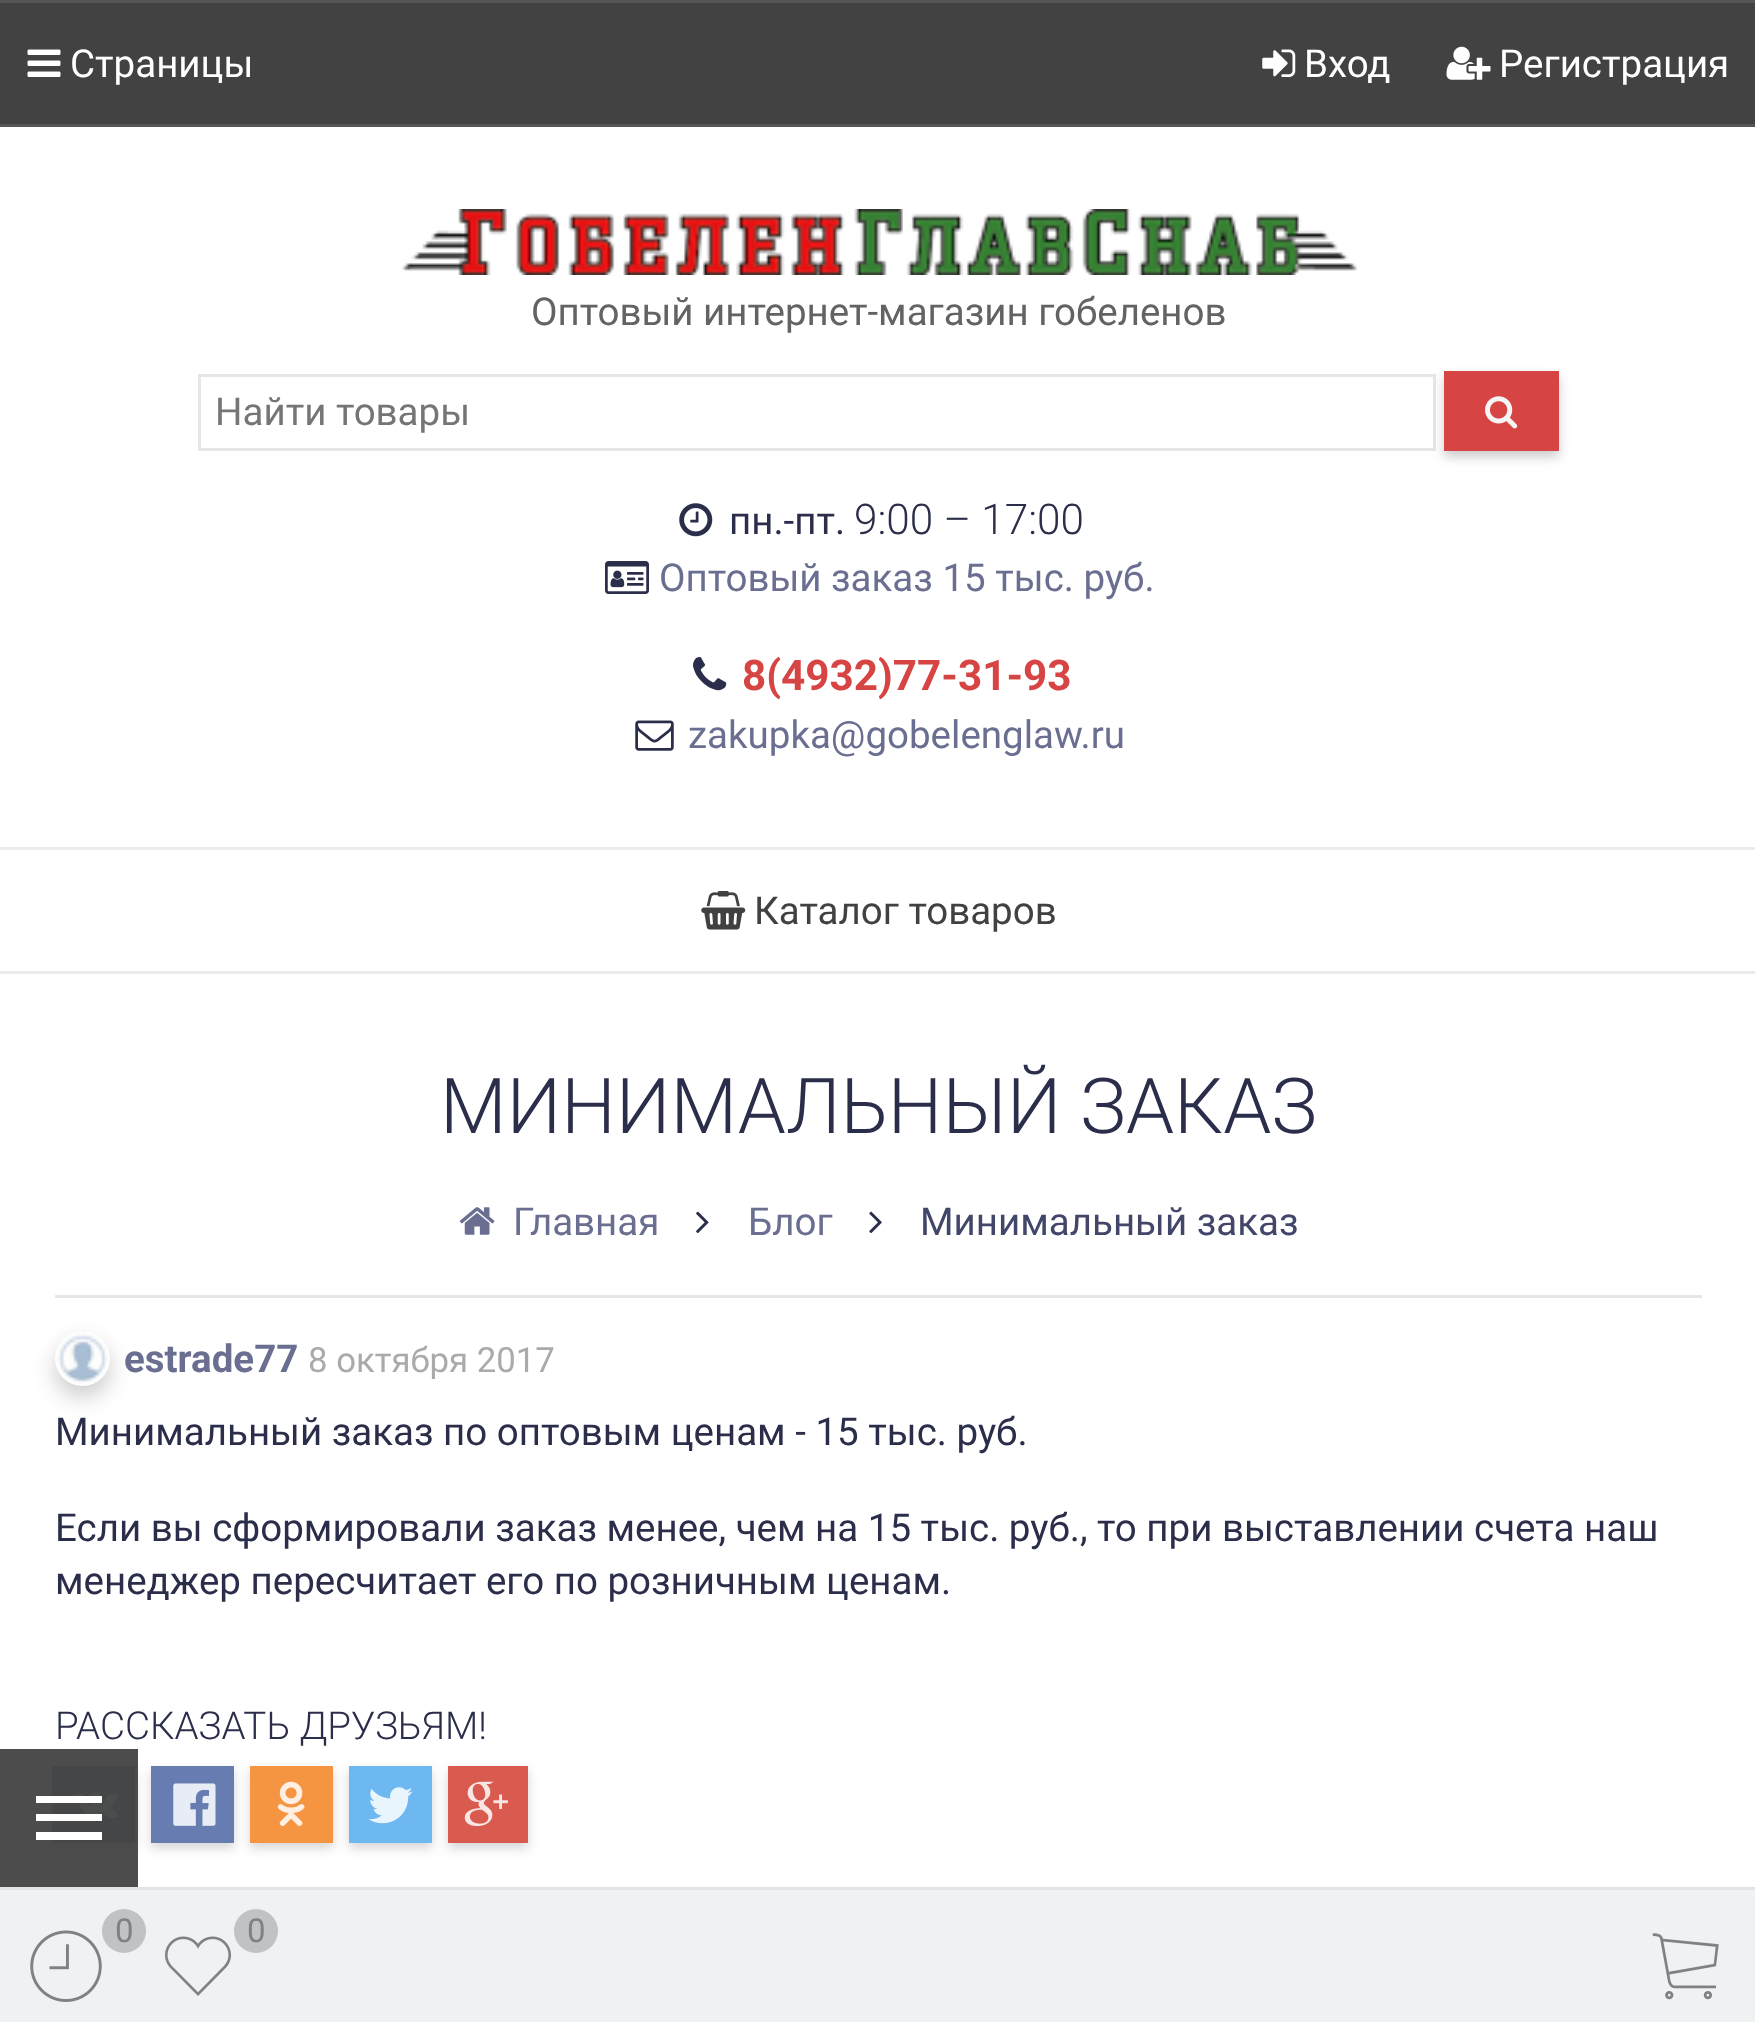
<!DOCTYPE html>
<meta charset="utf-8">
<style>body { margin: 0 } canvas { display: block }</style>
<canvas id="canvas" width="1755" height="2022"></canvas>
<img id="img1" src="img_01.png" hidden>
<img id="img2" src="img_02.png" hidden>
<img id="img3" src="img_03.png" hidden>
<img id="img4" src="img_04.png" hidden>
<img id="img5" src="img_05.png" hidden>
<img id="img6" src="img_06.png" hidden>
<img id="img7" src="img_07.png" hidden>
<img id="img8" src="img_08.png" hidden>
<img id="img9" src="img_09.png" hidden>
<img id="img10" src="img_10.png" hidden>
<img id="img11" src="img_11.png" hidden>
<img id="img12" src="img_12.png" hidden>
<img id="img13" src="img_13.png" hidden>
<img id="img14" src="img_14.png" hidden>
<img id="img15" src="img_15.png" hidden>
<img id="img16" src="img_16.png" hidden>
<img id="img17" src="img_17.png" hidden>
<img id="img18" src="img_18.png" hidden>
<img id="img19" src="img_19.png" hidden>
<img id="img20" src="img_20.png" hidden>
<img id="img21" src="img_21.png" hidden>
<img id="img22" src="img_22.png" hidden>
<script>
window.onload = function () {
	const canvas = document.getElementById("canvas");
	const ctx = canvas.getContext("2d");
	ctx.miterLimit = 4;
	ctx.fontKerning = "normal";
	function txt(s, x, y) {
		ctx.fillText(s, x, y);
	}
	function fill(x, y, w, h) {
		ctx.fillRect(x, y, w, h);
	}
	function img(id, x, y, w, h) {
		ctx.drawImage(document.getElementById(id), x, y, w, h);
	}

	ctx.fillStyle = "#FFFFFF";
	fill(0, 0, 1755, 2022);
	ctx.fillStyle = "#424242";
	fill(0, 3, 1755, 121);
	ctx.fillStyle = "#565656";
	fill(0, 0, 1755, 3);
	fill(0, 124, 1755, 3);
	img("img1", 27, 49, 34, 28);
	img("img2", 1262, 49, 34, 28);
	img("img3", 1446, 46, 45, 34);
	img("img4", 401, 209, 957, 66);
	ctx.strokeStyle = "#E6E6E6";
	ctx.lineWidth = 3;
	ctx.strokeRect(199.5, 375.5, 1235, 74);
	ctx.fillStyle = "rgba(0, 0, 0, 0.2)";
	ctx.filter = "blur(5.5px)";
	ctx.beginPath();
	ctx.rect(1444, 377, 115, 80);
	ctx.fill();
	ctx.filter = "none";
	ctx.fillStyle = "#D74444";
	fill(1444, 371, 115, 80);
	img("img5", 1485, 396, 33, 33);
	img("img6", 679, 503, 34, 34);
	img("img7", 605, 561, 44, 33);
	img("img8", 693, 657, 34, 34);
	img("img9", 635, 720, 39, 31);
	ctx.fillStyle = "#EBEBEB";
	fill(0, 847, 1755, 3);
	fill(0, 971, 1755, 3);
	img("img10", 701, 891, 45, 39);
	ctx.fillStyle = "#E6E6E6";
	fill(55, 1295, 1647, 3);
	img("img11", 459, 1207, 36, 28);
	img("img12", 696, 1211, 13, 22);
	img("img13", 869, 1211, 13, 22);
	ctx.fillStyle = "rgba(0, 0, 0, 0.2)";
	ctx.filter = "blur(11px)";
	ctx.beginPath();
	ctx.roundRect(55, 1342, 55, 55, 27.5);
	ctx.fill();
	ctx.filter = "none";
	img("img14", 55, 1332, 55, 54);
	ctx.fillStyle = "rgba(38, 38, 38, 0.2)";
	ctx.filter = "blur(5.5px)";
	ctx.beginPath();
	ctx.rect(52, 1771, 83, 77);
	ctx.fill();
	ctx.filter = "none";
	ctx.fillStyle = "#678AB1";
	fill(52, 1766, 83, 77);
	img("img15", 74, 1792, 45, 26);
	ctx.fillStyle = "rgba(0, 0, 0, 0.17)";
	ctx.filter = "blur(5.5px)";
	ctx.beginPath();
	ctx.rect(151, 1771, 83, 77);
	ctx.fill();
	ctx.filter = "none";
	ctx.fillStyle = "#677DB2";
	fill(151, 1766, 83, 77);
	img("img16", 173, 1783, 43, 43);
	ctx.fillStyle = "rgba(0, 0, 0, 0.17)";
	ctx.filter = "blur(5.5px)";
	ctx.beginPath();
	ctx.rect(250, 1771, 83, 77);
	ctx.fill();
	ctx.filter = "none";
	ctx.fillStyle = "#F69541";
	fill(250, 1766, 83, 77);
	img("img17", 277, 1781, 28, 45);
	ctx.fillStyle = "rgba(0, 0, 0, 0.17)";
	ctx.filter = "blur(5.5px)";
	ctx.beginPath();
	ctx.rect(349, 1771, 83, 77);
	ctx.fill();
	ctx.filter = "none";
	ctx.fillStyle = "#6EB8F1";
	fill(349, 1766, 83, 77);
	img("img18", 368, 1787, 45, 37);
	ctx.fillStyle = "rgba(0, 0, 0, 0.17)";
	ctx.filter = "blur(5.5px)";
	ctx.beginPath();
	ctx.rect(448, 1771, 80, 77);
	ctx.fill();
	ctx.filter = "none";
	ctx.fillStyle = "#D95B4F";
	fill(448, 1766, 80, 77);
	img("img19", 464, 1781, 44, 45);
	ctx.fillStyle = "rgba(66, 66, 66, 0.95)";
	fill(0, 1749, 138, 138);
	ctx.fillStyle = "#FFFFFF";
	ctx.beginPath();
	ctx.moveTo(36, 1840);
	ctx.lineTo(36, 1832);
	ctx.lineTo(102, 1832);
	ctx.lineTo(102, 1840);
	ctx.closePath();
	ctx.moveTo(36, 1821);
	ctx.lineTo(36, 1814);
	ctx.lineTo(102, 1814);
	ctx.lineTo(102, 1821);
	ctx.closePath();
	ctx.moveTo(36, 1796);
	ctx.lineTo(102, 1796);
	ctx.lineTo(102, 1803);
	ctx.lineTo(36, 1803);
	ctx.closePath();
	ctx.fill();
	ctx.fillStyle = "#EFF2F3";
	fill(0, 1890, 1755, 132);
	ctx.fillStyle = "#E0E4E5";
	fill(0, 1887, 1755, 3);
	img("img20", 30, 1930, 72, 72);
	ctx.fillStyle = "#BFC3C4";
	ctx.beginPath();
	ctx.arc(124, 1931, 22, 0, Math.PI * 2);
	ctx.fill();
	ctx.beginPath();
	ctx.arc(256, 1931, 22, 0, Math.PI * 2);
	ctx.fill();
	img("img21", 165, 1936, 66, 60);
	img("img22", 1652, 1933, 67, 67);
	ctx.font = "38.5px Roboto";
	ctx.fillStyle = "#FFFFFF";
	txt("Страницы", 70, 77);
	txt("Вход", 1304, 77);
	txt("Регистрация", 1499, 77);
	ctx.fillStyle = "#636363";
	txt("Оптовый интернет-магазин гобеленов", 531, 325);
	ctx.fillStyle = "#757575";
	txt("Найти товары", 215, 425);
	ctx.fillStyle = "#2B2E4A";
	txt("пн.-пт.", 729, 534);
	ctx.font = "300 42.25px Roboto";
	txt("9:00 – 17:00", 854, 534);
	ctx.font = "38.5px Roboto";
	ctx.fillStyle = "#6A6F91";
	txt("Оптовый заказ 15 тыс. руб.", 659, 591);
	ctx.font = "bold 42.25px Roboto";
	ctx.fillStyle = "#D74444";
	txt("8(4932)77-31-93", 742, 690);
	ctx.font = "38.5px Roboto";
	ctx.fillStyle = "#6A6F91";
	txt("zakupka@gobelenglaw.ru", 688, 748);
	ctx.fillStyle = "#414141";
	txt("Каталог товаров", 754, 924);
	ctx.font = "300 77px Roboto";
	ctx.fillStyle = "#2B2E4A";
	txt("МИНИМАЛЬНЫЙ ЗАКАЗ", 440, 1133);
	ctx.font = "38.5px Roboto";
	ctx.fillStyle = "#6A6F91";
	txt("Главная", 513, 1235);
	txt("Блог", 748, 1235);
	ctx.fillStyle = "#424769";
	txt("Минимальный заказ", 920, 1235);
	ctx.font = "bold 38.5px Roboto";
	ctx.fillStyle = "#6A6F91";
	txt("estrade77", 124, 1372);
	ctx.font = "34.75px Roboto";
	ctx.fillStyle = "#AAAAAA";
	txt("8 октября 2017", 308, 1372);
	ctx.font = "38.5px Roboto";
	ctx.fillStyle = "#2B2E4A";
	txt("Минимальный заказ по оптовым ценам - 15 тыс. руб.", 55, 1445);
	txt("Если вы сформировали заказ менее, чем на 15 тыс. руб., то при выставлении счета наш", 55, 1541);
	txt("менеджер пересчитает его по розничным ценам.", 55, 1594);
	ctx.font = "300 38.5px Roboto";
	txt("РАССКАЗАТЬ ДРУЗЬЯМ!", 55, 1739);
	ctx.font = "33px Roboto";
	ctx.fillStyle = "#7F8182";
	txt("0", 115, 1942);
	txt("0", 247, 1942);
};
</script>
